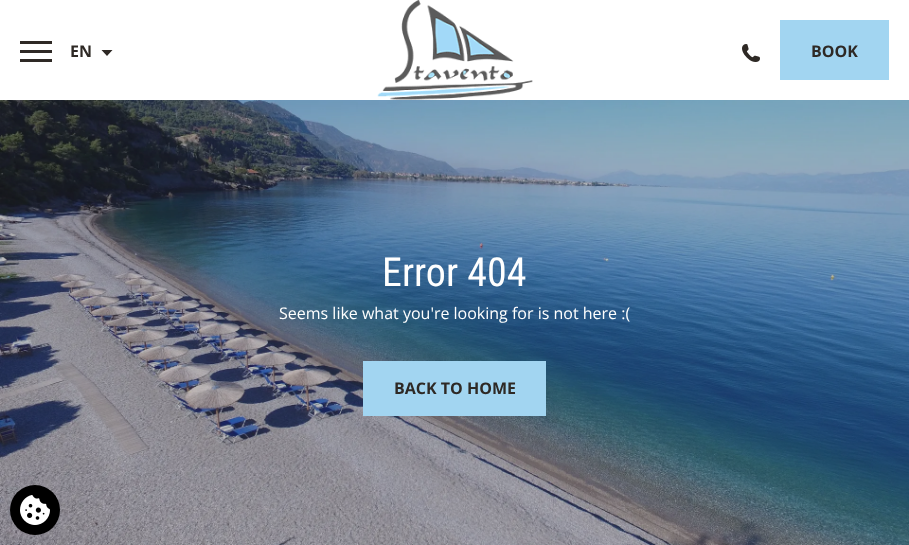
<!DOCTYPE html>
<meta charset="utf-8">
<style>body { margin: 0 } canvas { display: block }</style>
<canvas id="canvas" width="909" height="545"></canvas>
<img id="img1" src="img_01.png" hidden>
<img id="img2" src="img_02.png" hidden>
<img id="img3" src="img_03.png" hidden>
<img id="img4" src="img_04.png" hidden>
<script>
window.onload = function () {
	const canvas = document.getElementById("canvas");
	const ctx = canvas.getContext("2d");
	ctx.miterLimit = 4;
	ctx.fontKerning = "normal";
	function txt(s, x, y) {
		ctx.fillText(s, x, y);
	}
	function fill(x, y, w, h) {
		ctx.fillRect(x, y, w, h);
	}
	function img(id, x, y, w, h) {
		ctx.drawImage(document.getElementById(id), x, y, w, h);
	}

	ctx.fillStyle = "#FFFFFF";
	fill(0, 0, 909, 545);
	ctx.fillStyle = "#2E2925";
	fill(20, 50, 32, 3);
	fill(20, 41, 32, 3);
	fill(20, 59, 32, 3);
	img("img1", 377, 0, 156, 100);
	ctx.beginPath();
	ctx.moveTo(112.5, 50);
	ctx.lineTo(107, 56);
	ctx.lineTo(107, 50);
	ctx.closePath();
	ctx.moveTo(107, 56);
	ctx.lineTo(101.5, 50);
	ctx.lineTo(107, 50);
	ctx.closePath();
	ctx.fill();
	img("img2", 742, 44, 18, 18);
	ctx.fillStyle = "#A2D5F1";
	fill(780, 20, 109, 60);
	img("img3", 0, 100, 909, 445);
	fill(363, 361, 183, 55);
	ctx.fillStyle = "#000000";
	ctx.beginPath();
	ctx.arc(35, 510, 25, 0, Math.PI * 2);
	ctx.fill();
	img("img4", 20, 495, 30, 30);
	ctx.font = "bold 16px Open Sans";
	ctx.fillStyle = "#2E2925";
	txt("EN", 70, 57);
	txt("BOOK", 811, 57);
	ctx.font = "40px Roboto Condensed";
	ctx.fillStyle = "#FFFFFF";
	txt("Error 404", 382, 286);
	ctx.font = "16px Open Sans";
	txt("Seems like what you're looking for is not here :(", 279, 319);
	ctx.font = "bold 16px Open Sans";
	ctx.fillStyle = "#2E2925";
	txt("BACK TO HOME", 394, 394);
};
</script>
